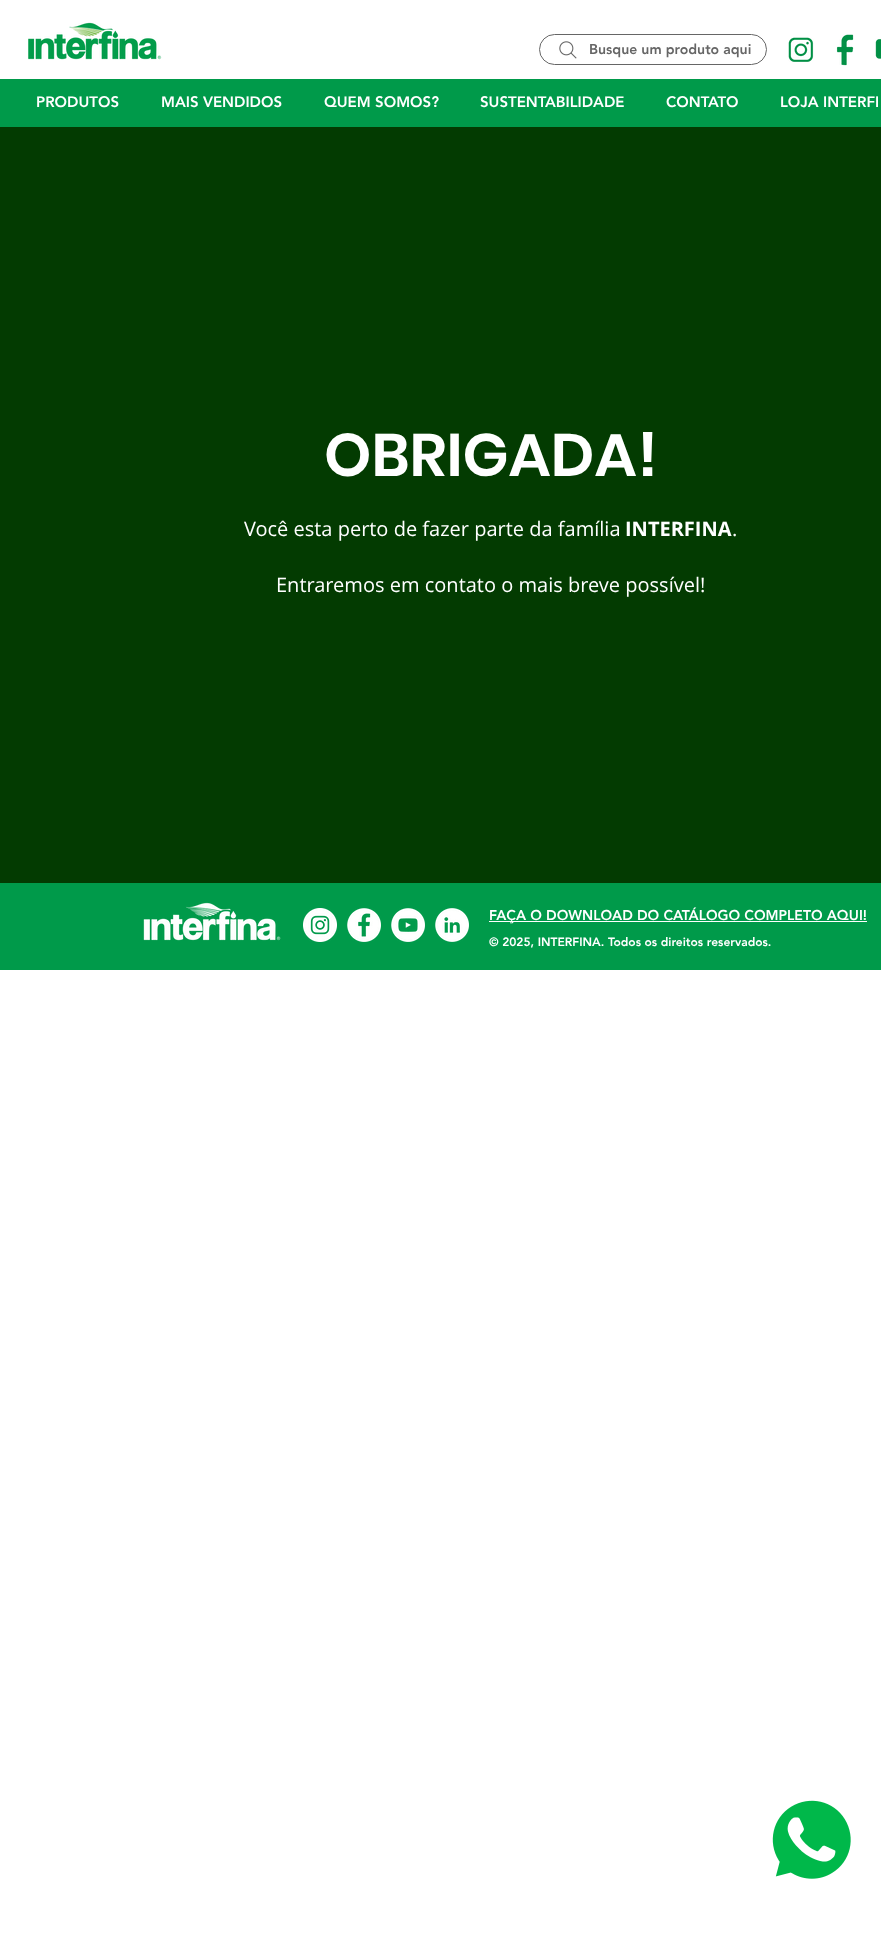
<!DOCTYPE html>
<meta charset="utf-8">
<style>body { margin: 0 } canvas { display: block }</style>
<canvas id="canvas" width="881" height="1959"></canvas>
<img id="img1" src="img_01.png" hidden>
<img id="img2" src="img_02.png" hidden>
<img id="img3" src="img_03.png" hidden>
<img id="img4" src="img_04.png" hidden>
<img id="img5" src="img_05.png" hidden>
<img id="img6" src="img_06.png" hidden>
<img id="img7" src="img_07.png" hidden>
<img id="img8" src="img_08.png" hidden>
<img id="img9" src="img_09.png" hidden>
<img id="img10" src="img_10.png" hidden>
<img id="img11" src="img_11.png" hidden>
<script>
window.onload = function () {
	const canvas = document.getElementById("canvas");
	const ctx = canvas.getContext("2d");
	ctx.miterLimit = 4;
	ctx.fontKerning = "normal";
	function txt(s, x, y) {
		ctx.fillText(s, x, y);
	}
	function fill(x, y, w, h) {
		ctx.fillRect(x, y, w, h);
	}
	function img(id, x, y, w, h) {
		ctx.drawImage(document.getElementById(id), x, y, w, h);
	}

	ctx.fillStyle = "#FFFFFF";
	fill(0, 0, 881, 1959);
	img("img1", 28, 22, 134, 38);
	ctx.beginPath();
	ctx.roundRect(539.5, 34.5, 227, 30, 15);
	ctx.strokeStyle = "#666666";
	ctx.stroke();
	img("img2", 559, 41, 18, 18);
	img("img3", 788, 37, 26, 25);
	img("img4", 836, 34, 18, 32);
	img("img5", 875, 39, 6, 20);
	ctx.fillStyle = "#009A4A";
	fill(0, 79, 881, 48);
	ctx.fillStyle = "#033B01";
	fill(0, 127, 881, 756);
	ctx.fillStyle = "#009A4A";
	fill(0, 883, 881, 87);
	img("img6", 143, 902, 138, 39);
	img("img7", 303, 908, 34, 34);
	img("img8", 347, 908, 34, 34);
	img("img9", 391, 908, 34, 34);
	img("img10", 435, 908, 34, 34);
	ctx.fillStyle = "#FFFFFF";
	fill(489, 921, 378, 1);
	img("img11", 772, 1800, 79, 79);
	ctx.font = "900 14px 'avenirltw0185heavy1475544'";
	ctx.fillStyle = "#666666";
	txt("Busque um produto aqui", 589, 54);
	ctx.font = "900 15px 'avenirltw0185heavy1475544'";
	ctx.fillStyle = "#FFFFFF";
	txt("PRODUTOS", 36, 107);
	txt("MAIS VENDIDOS", 161, 107);
	txt("QUEM SOMOS?", 324, 107);
	txt("SUSTENTABILIDADE", 480, 107);
	txt("CONTATO", 666, 107);
	txt("LOJA INTERFI", 780, 107);
	ctx.font = "600 60px Poppins";
	txt("OBRIGADA!", 324, 476);
	ctx.font = "20px Open Sans";
	txt("Você esta perto de fazer parte da família", 244, 536);
	ctx.font = "bold 20px Open Sans";
	txt("INTERFINA", 625, 536);
	ctx.font = "20px Open Sans";
	txt(".", 732, 536);
	txt("Entraremos em contato o mais breve possível!", 276, 592);
	ctx.font = "900 14px 'avenirltw0185heavy1475544'";
	txt("FAÇA O DOWNLOAD DO CATÁLOGO COMPLETO AQUI!", 489, 920);
	ctx.font = "900 12px 'avenirltw0185heavy1475544'";
	txt("© 2025, INTERFINA. Todos os direitos reservados.", 489, 946);
};
</script>
